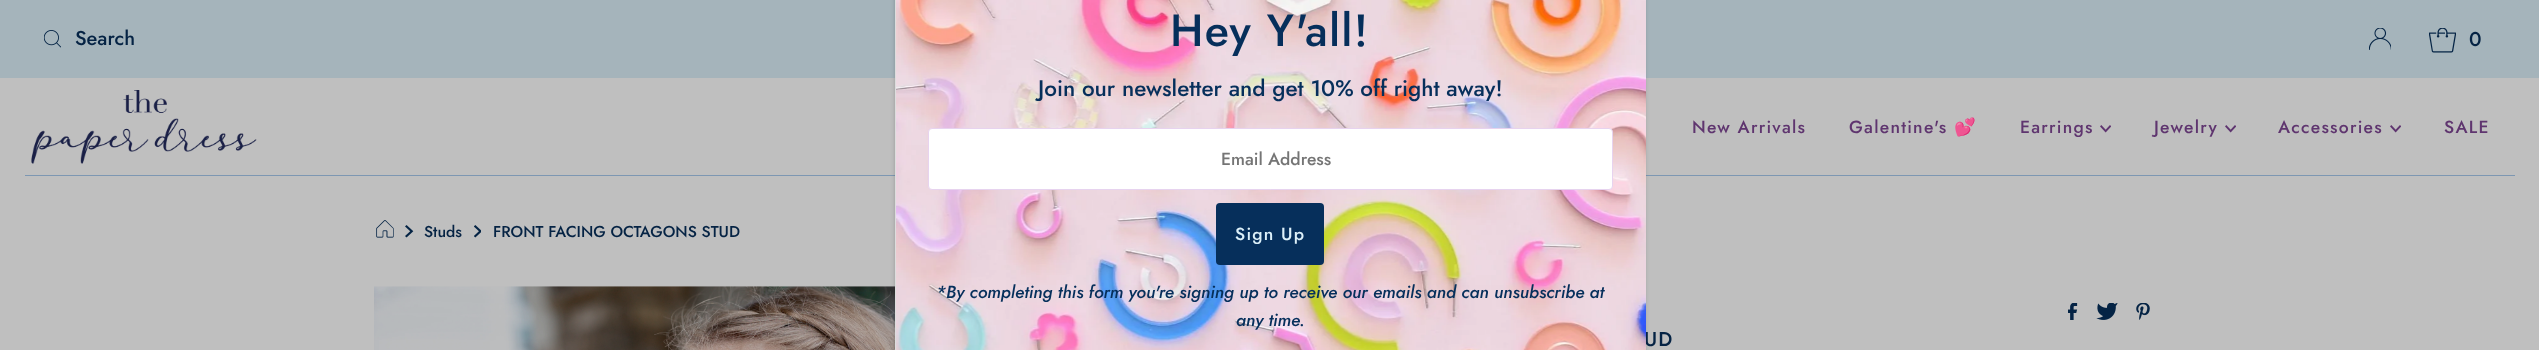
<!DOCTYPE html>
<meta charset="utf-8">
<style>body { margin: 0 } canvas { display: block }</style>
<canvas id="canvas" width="2539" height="350"></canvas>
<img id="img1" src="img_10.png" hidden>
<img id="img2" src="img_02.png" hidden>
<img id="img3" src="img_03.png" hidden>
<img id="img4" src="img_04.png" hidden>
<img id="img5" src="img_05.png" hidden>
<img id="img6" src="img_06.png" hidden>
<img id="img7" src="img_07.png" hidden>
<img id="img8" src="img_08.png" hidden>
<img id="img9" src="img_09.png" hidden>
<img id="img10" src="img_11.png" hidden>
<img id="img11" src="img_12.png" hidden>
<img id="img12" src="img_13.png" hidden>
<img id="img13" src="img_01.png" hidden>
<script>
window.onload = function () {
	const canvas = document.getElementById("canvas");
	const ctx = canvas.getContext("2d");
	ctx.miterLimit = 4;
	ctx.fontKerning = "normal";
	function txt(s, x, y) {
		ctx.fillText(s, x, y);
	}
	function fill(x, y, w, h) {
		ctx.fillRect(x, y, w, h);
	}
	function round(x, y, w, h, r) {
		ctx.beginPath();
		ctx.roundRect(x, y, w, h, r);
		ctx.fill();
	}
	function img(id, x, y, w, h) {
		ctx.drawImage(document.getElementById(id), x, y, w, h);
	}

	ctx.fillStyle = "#BFBFBF";
	fill(0, 0, 2539, 350);
	ctx.fillStyle = "#A5B4BB";
	fill(0, 0, 2539, 78);
	ctx.fillStyle = "#7D97B2";
	fill(25, 175, 2490, 1);
	img("img1", 374, 286, 521, 64);
	ctx.fillStyle = "rgba(0, 0, 0, 0.2)";
	ctx.filter = "blur(2px)";
	ctx.beginPath();
	ctx.rect(895, -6, 750, 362);
	ctx.fill();
	ctx.filter = "none";
	ctx.strokeStyle = "#DDDDDD";
	ctx.strokeRect(895.5, -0.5, 749, 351);
	img("img2", 44, 30, 17, 18);
	img("img3", 2369, 28, 22, 22);
	img("img4", 2429, 28, 27, 25);
	img("img5", 31, 90, 226, 74);
	img("img6", 2100, 125, 11, 8);
	img("img6", 2225, 125, 11, 8);
	img("img6", 2390, 125, 11, 8);
	img("img7", 376, 220, 18, 18);
	img("img8", 405, 225, 9, 13);
	img("img9", 474, 225, 7, 13);
	img("img10", 2068, 303, 10, 17);
	img("img11", 2096, 303, 22, 17);
	img("img12", 2136, 303, 14, 17);
	ctx.font = "500 20px Jost";
	ctx.fillStyle = "#052344";
	txt("Search", 75, 45);
	ctx.letterSpacing = "1.25px";
	txt("0", 2469, 46);
	ctx.font = "500 17.5px Jost";
	ctx.fillStyle = "#5F356F";
	txt("New Arrivals", 1692, 133);
	txt("Galentine's", 1849, 133);
	ctx.font = "17.5px Noto Color Emoji";
	txt("💕", 1954, 133);
	ctx.font = "500 17.5px Jost";
	txt("Earrings", 2020, 133);
	txt("Jewelry", 2154, 133);
	txt("Accessories", 2278, 133);
	txt("SALE", 2444, 133);
	ctx.letterSpacing = "0px";
	ctx.font = "500 15.75px Jost";
	ctx.fillStyle = "#052344";
	txt("Studs", 424, 237);
	txt("FRONT FACING OCTAGONS STUD", 493, 237);
	ctx.letterSpacing = "1.25px";
	ctx.font = "500 20px Jost";
	txt("UD", 1644, 346);
	img("img13", 896, 0, 750, 350);
	ctx.fillStyle = "#062F5B";
	round(1216, 203, 108, 62, 4);
	ctx.font = "500 17.5px Jost";
	ctx.fillStyle = "#DCF0F9";
	txt("Sign Up", 1235, 240);
	ctx.letterSpacing = "0px";
	ctx.font = "italic 500 17.5px Jost";
	ctx.fillStyle = "#062F5B";
	txt("any time.", 1236, 326);
	txt("*By completing this form you're signing up to receive our emails and can unsubscribe at", 936, 298);
	ctx.fillStyle = "#FFFFFF";
	ctx.beginPath();
	ctx.roundRect(928.5, 128.5, 684, 61, 3.5);
	ctx.fill();
	ctx.strokeStyle = "#E7D3EF";
	ctx.stroke();
	ctx.font = "500 17.5px Jost";
	ctx.fillStyle = "#757575";
	txt("Email Address", 1221, 165);
	ctx.font = "500 22.5px Jost";
	ctx.fillStyle = "#062F5B";
	txt("Join our newsletter and get 10% off right away!", 1038, 96);
	ctx.letterSpacing = "1.25px";
	ctx.font = "500 45px Jost";
	txt("Hey Y'all!", 1170, 46);
};
</script>
